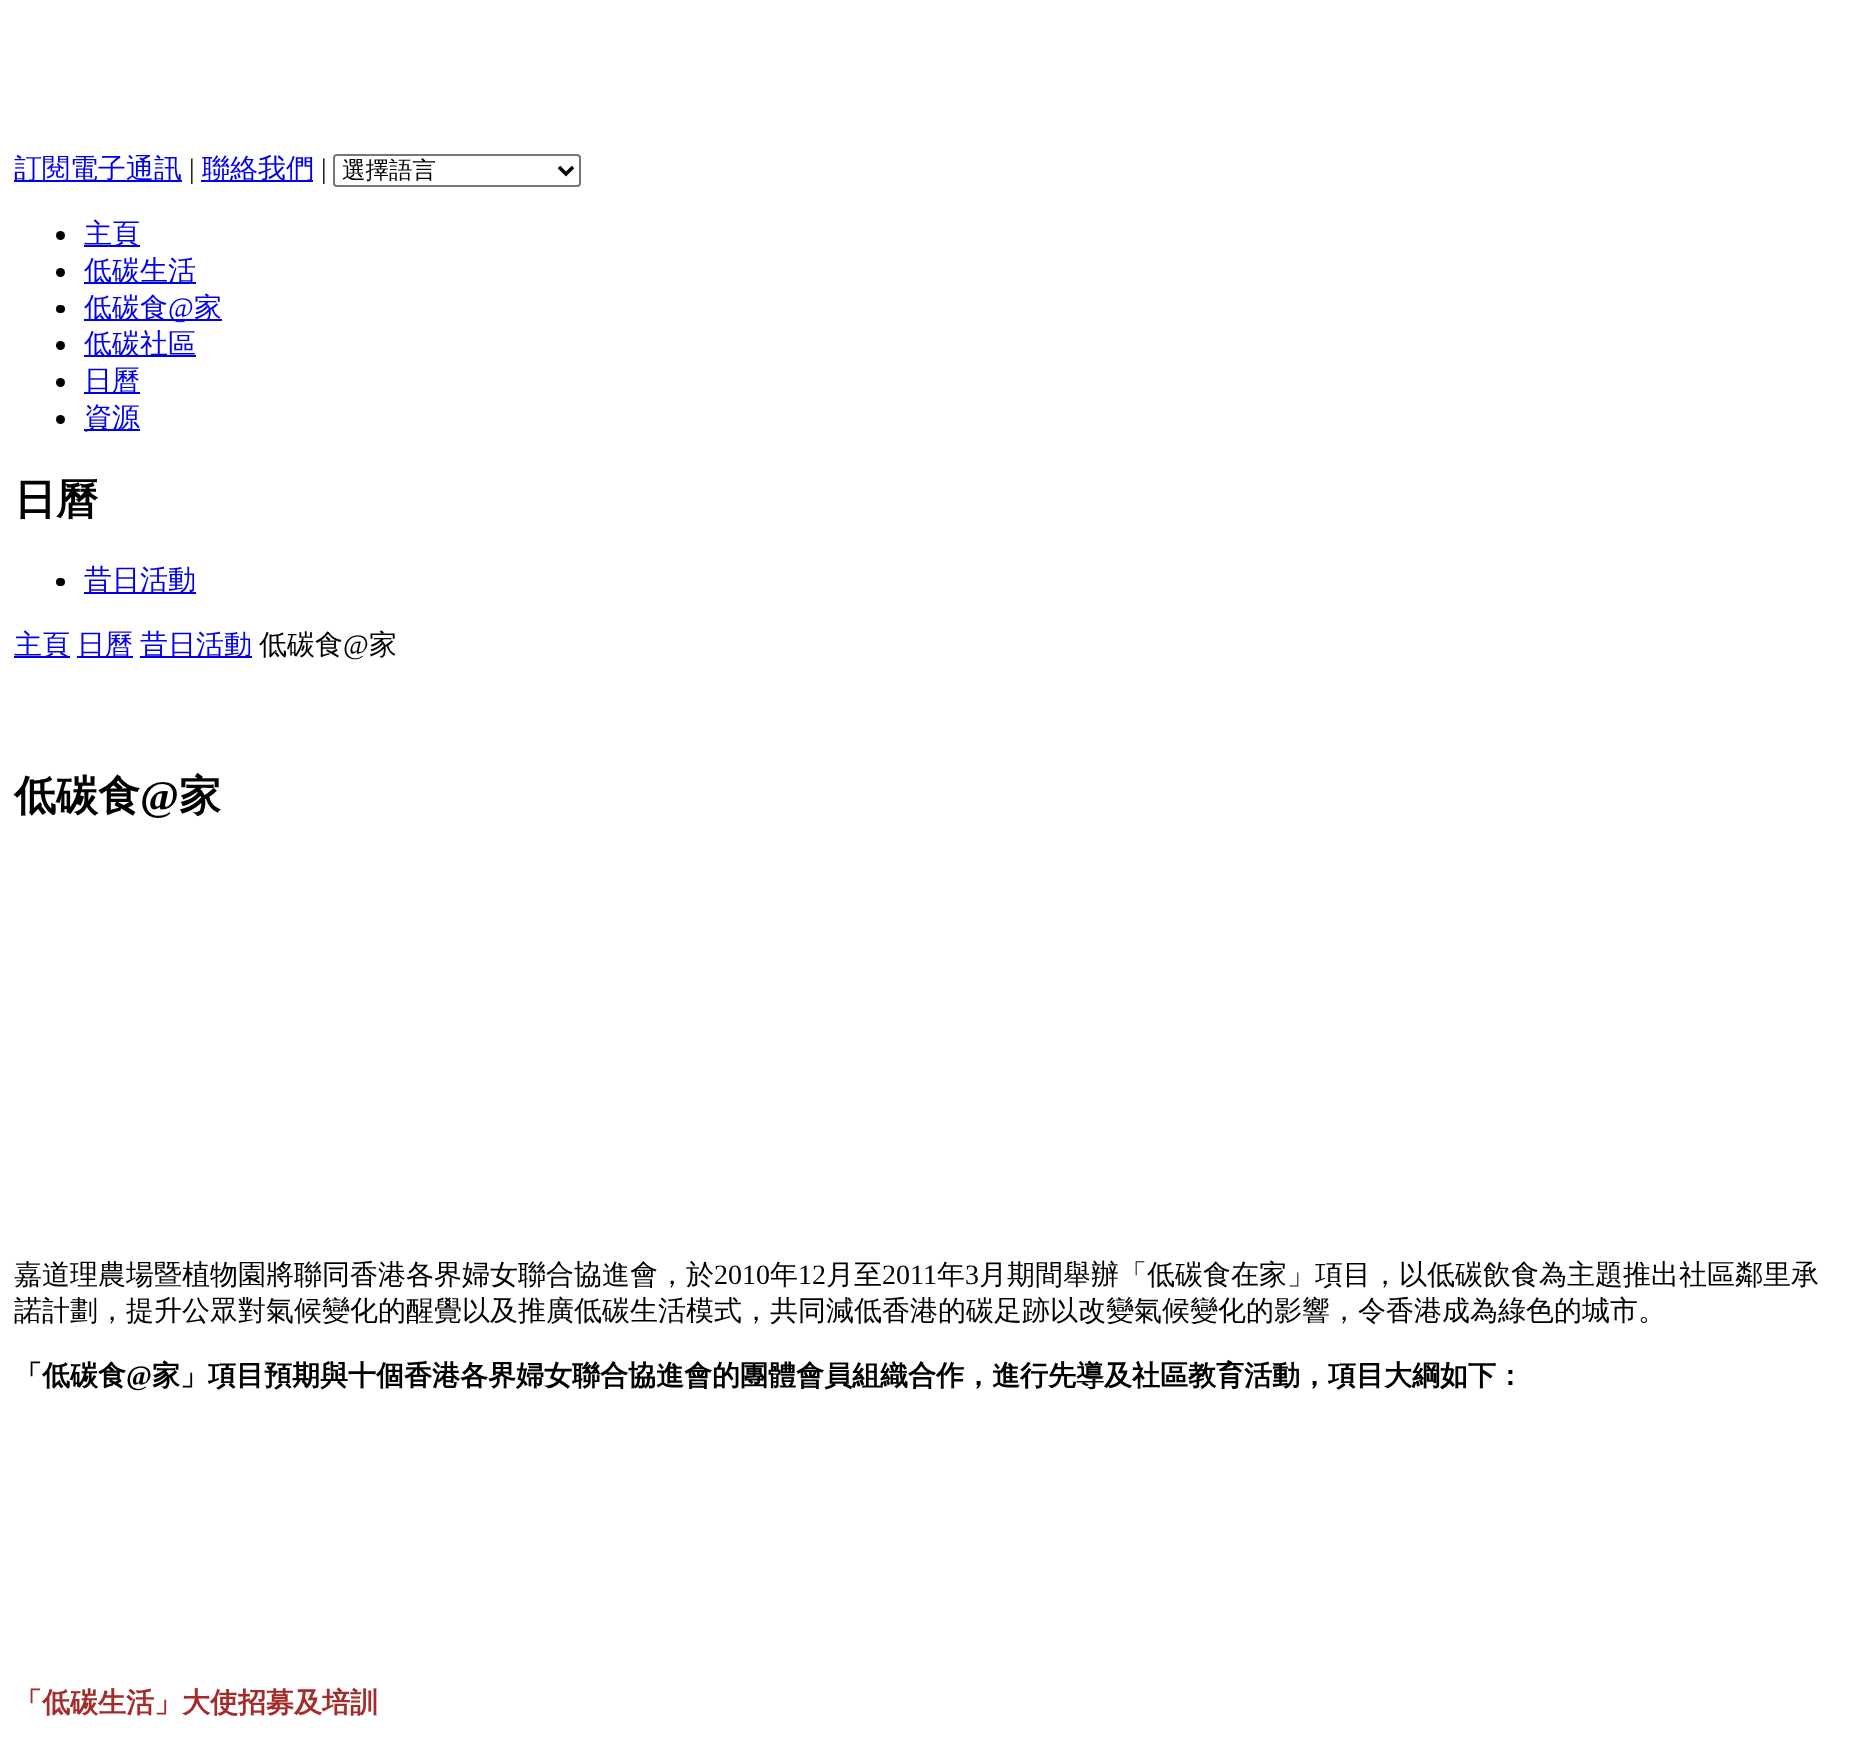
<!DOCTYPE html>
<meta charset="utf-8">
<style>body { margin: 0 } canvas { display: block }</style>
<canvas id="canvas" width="1860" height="1763"></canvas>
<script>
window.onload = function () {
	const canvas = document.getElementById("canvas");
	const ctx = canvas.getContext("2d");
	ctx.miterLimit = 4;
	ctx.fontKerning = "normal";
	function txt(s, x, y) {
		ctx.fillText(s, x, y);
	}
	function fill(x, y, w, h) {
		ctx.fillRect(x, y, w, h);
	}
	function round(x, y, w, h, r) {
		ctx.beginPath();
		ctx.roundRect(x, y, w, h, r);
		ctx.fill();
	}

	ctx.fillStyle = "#FFFFFF";
	fill(0, 0, 1860, 1763);
	ctx.fillStyle = "#0000EE";
	fill(14, 180, 168, 2);
	fill(201, 180, 112, 2);
	ctx.beginPath();
	ctx.roundRect(334, 155, 246, 31, 3);
	ctx.strokeStyle = "#767676";
	ctx.lineWidth = 2;
	ctx.stroke();
	ctx.beginPath();
	ctx.moveTo(559, 167);
	ctx.lineTo(566, 174);
	ctx.lineTo(573, 167);
	ctx.strokeStyle = "#000000";
	ctx.lineWidth = 3.5;
	ctx.stroke();
	ctx.fillStyle = "#000000";
	ctx.beginPath();
	ctx.arc(60.5, 235.5, 4.5, 0, Math.PI * 2);
	ctx.fill();
	ctx.fillStyle = "#0000EE";
	fill(84, 245, 56, 2);
	ctx.fillStyle = "#000000";
	ctx.beginPath();
	ctx.arc(60.5, 272.5, 4.5, 0, Math.PI * 2);
	ctx.fill();
	ctx.fillStyle = "#0000EE";
	fill(84, 282, 112, 2);
	ctx.fillStyle = "#000000";
	round(56, 305, 9, 8, 4);
	ctx.fillStyle = "#0000EE";
	fill(84, 319, 138, 2);
	ctx.fillStyle = "#000000";
	ctx.beginPath();
	ctx.arc(60.5, 345.5, 4.5, 0, Math.PI * 2);
	ctx.fill();
	ctx.fillStyle = "#0000EE";
	fill(84, 355, 112, 2);
	ctx.fillStyle = "#000000";
	ctx.beginPath();
	ctx.arc(60.5, 382.5, 4.5, 0, Math.PI * 2);
	ctx.fill();
	ctx.fillStyle = "#0000EE";
	fill(84, 392, 56, 2);
	ctx.fillStyle = "#000000";
	ctx.beginPath();
	ctx.arc(60.5, 419.5, 4.5, 0, Math.PI * 2);
	ctx.fill();
	ctx.fillStyle = "#0000EE";
	fill(84, 429, 56, 2);
	ctx.fillStyle = "#000000";
	round(56, 578, 9, 8, 4);
	ctx.fillStyle = "#0000EE";
	fill(84, 592, 112, 2);
	fill(14, 656, 56, 2);
	fill(77, 656, 56, 2);
	fill(140, 656, 112, 2);
	ctx.font = "500 28px WenQuanYi Zen Hei";
	txt("訂閱電子通訊", 14, 178);
	ctx.font = "28px Liberation Serif";
	ctx.fillStyle = "#000000";
	txt("|", 189, 178);
	ctx.font = "500 28px WenQuanYi Zen Hei";
	ctx.fillStyle = "#0000EE";
	txt("聯絡我們", 202, 178);
	ctx.font = "28px Liberation Serif";
	ctx.fillStyle = "#000000";
	txt("|", 321, 178);
	ctx.font = "500 23.5px WenQuanYi Zen Hei";
	txt("選擇語言", 342, 178);
	ctx.font = "500 28px WenQuanYi Zen Hei";
	ctx.fillStyle = "#0000EE";
	txt("主頁", 84, 243);
	txt("低碳生活", 84, 280);
	txt("低碳食", 84, 317);
	ctx.font = "28px Liberation Serif";
	txt("@", 168, 317);
	ctx.font = "500 28px WenQuanYi Zen Hei";
	txt("家", 194, 317);
	txt("低碳社區", 84, 353);
	txt("日曆", 84, 390);
	txt("資源", 84, 427);
	ctx.font = "bold 42px WenQuanYi Zen Hei";
	ctx.fillStyle = "#000000";
	txt("日曆", 14, 514);
	ctx.font = "500 28px WenQuanYi Zen Hei";
	ctx.fillStyle = "#0000EE";
	txt("昔日活動", 84, 589);
	txt("主頁", 14, 654);
	txt("日曆", 77, 654);
	txt("昔日活動", 140, 654);
	ctx.fillStyle = "#000000";
	txt("低碳食", 259, 654);
	ctx.font = "28px Liberation Serif";
	txt("@", 343, 654);
	ctx.font = "500 28px WenQuanYi Zen Hei";
	txt("家", 369, 654);
	ctx.font = "bold 42px WenQuanYi Zen Hei";
	txt("低碳食", 14, 810);
	ctx.font = "bold 42px Liberation Serif";
	txt("@", 140, 810);
	ctx.font = "bold 42px WenQuanYi Zen Hei";
	txt("家", 179, 810);
	ctx.font = "500 28px WenQuanYi Zen Hei";
	txt("嘉道理農場暨植物園將聯同香港各界婦女聯合協進會，於", 14, 1284);
	ctx.font = "28px Liberation Serif";
	txt("2010", 714, 1284);
	ctx.font = "500 28px WenQuanYi Zen Hei";
	txt("年", 770, 1284);
	ctx.font = "28px Liberation Serif";
	txt("12", 798, 1284);
	ctx.font = "500 28px WenQuanYi Zen Hei";
	txt("月至", 826, 1284);
	ctx.font = "28px Liberation Serif";
	txt("2011", 882, 1284);
	ctx.font = "500 28px WenQuanYi Zen Hei";
	txt("年", 937, 1284);
	ctx.font = "28px Liberation Serif";
	txt("3", 965, 1284);
	ctx.font = "500 28px WenQuanYi Zen Hei";
	txt("月期間舉辦「低碳食在家」項目，以低碳飲食為主題推出社區鄰里承", 979, 1284);
	txt("諾計劃，提升公眾對氣候變化的醒覺以及推廣低碳生活模式，共同減低香港的碳足跡以改變氣候變化的影響，令香港成為綠色的城市。", 14, 1320);
	ctx.font = "bold 28px WenQuanYi Zen Hei";
	txt("「低碳食", 14, 1385);
	ctx.font = "bold 28px Liberation Serif";
	txt("@", 126, 1385);
	ctx.font = "bold 28px WenQuanYi Zen Hei";
	txt("家」項目預期與十個香港各界婦女聯合協進會的團體會員組織合作，進行先導及社區教育活動，項目大綱如下：", 152, 1385);
	ctx.fillStyle = "#A52A2A";
	txt("「低碳生活」大使招募及培訓", 14, 1712);
};
</script>
